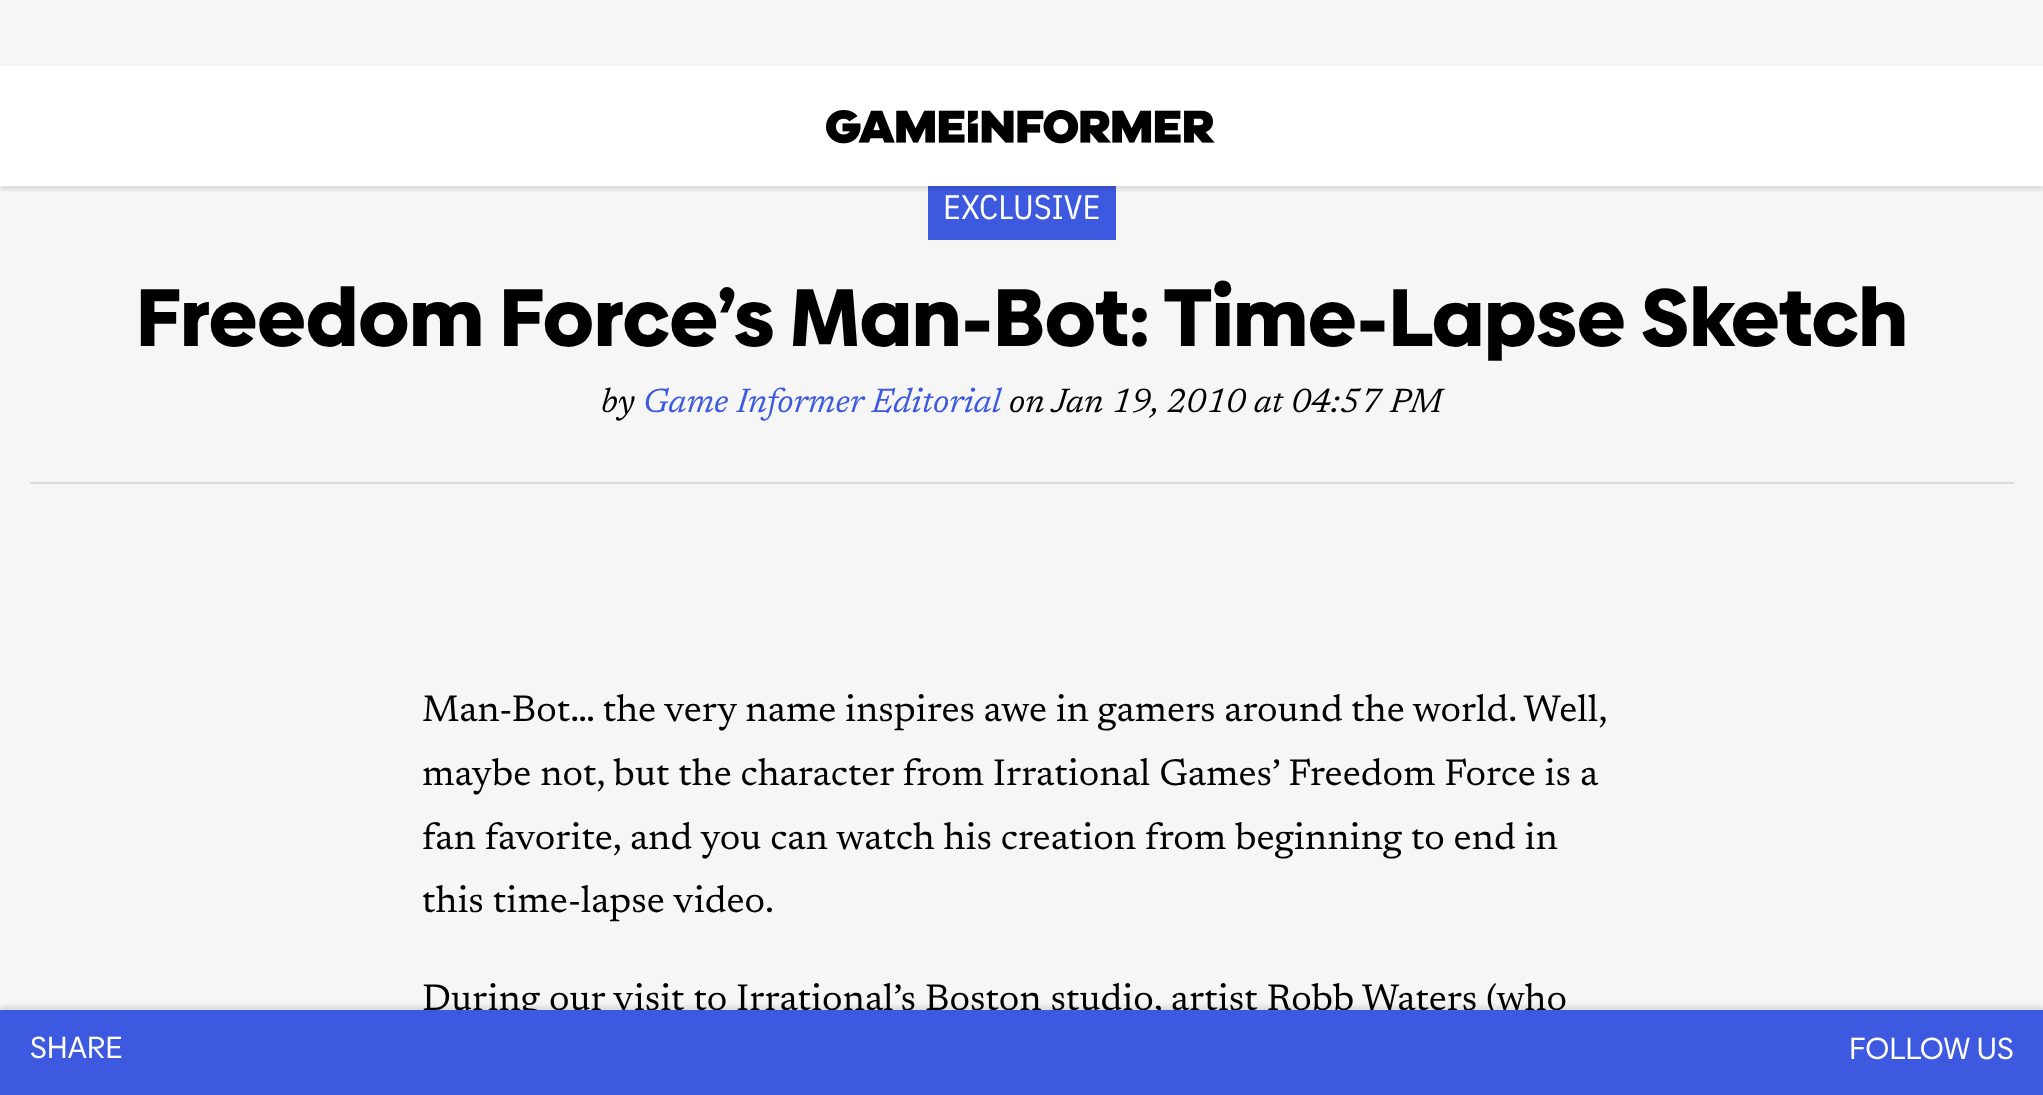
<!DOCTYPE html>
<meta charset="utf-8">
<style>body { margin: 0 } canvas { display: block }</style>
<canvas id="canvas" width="2043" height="1095"></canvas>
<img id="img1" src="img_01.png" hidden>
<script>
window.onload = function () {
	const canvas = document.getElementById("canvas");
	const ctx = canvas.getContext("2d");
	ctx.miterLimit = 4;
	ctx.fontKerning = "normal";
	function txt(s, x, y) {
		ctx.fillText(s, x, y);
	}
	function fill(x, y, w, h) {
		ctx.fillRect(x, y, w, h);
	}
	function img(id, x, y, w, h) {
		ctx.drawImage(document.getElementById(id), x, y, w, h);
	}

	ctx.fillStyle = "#F6F6F6";
	fill(0, 0, 2043, 1095);
	ctx.fillStyle = "#3C59E0";
	fill(928, 186, 188, 54);
	ctx.fillStyle = "rgba(0, 0, 0, 0.1)";
	ctx.filter = "blur(2px)";
	ctx.beginPath();
	ctx.rect(0, 70, 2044, 120);
	ctx.fill();
	ctx.filter = "none";
	ctx.fillStyle = "#FFFFFF";
	fill(0, 66, 2043, 120);
	img("img1", 826, 110, 389, 34);
	ctx.fillStyle = "#DBDBDB";
	fill(30, 482, 1984, 2);
	ctx.fillStyle = "rgba(0, 0, 0, 0.1)";
	ctx.filter = "blur(2px)";
	ctx.beginPath();
	ctx.rect(0, 1006, 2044, 86);
	ctx.fill();
	ctx.filter = "none";
	ctx.font = "34px IBM Plex Sans Condensed";
	ctx.fillStyle = "#FFFFFF";
	txt("EXCLUSIVE", 943, 219);
	ctx.font = "900 81.6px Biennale";
	ctx.fillStyle = "#000000";
	txt("Freedom Force’s Man-Bot: Time-Lapse Sketch", 136, 346);
	ctx.font = "italic 34px Newsreader";
	txt("by", 601, 412);
	ctx.fillStyle = "#3C59E0";
	txt("Game Informer Editorial", 643, 412);
	ctx.fillStyle = "#000000";
	txt("on Jan 19, 2010 at 04:57 PM", 1009, 412);
	ctx.wordSpacing = "-0.25px";
	ctx.font = "37.4px Newsreader";
	txt("Man-Bot… the very name inspires awe in gamers around the world. Well,", 422, 721);
	ctx.wordSpacing = "0px";
	txt("maybe not, but the character from Irrational Games’ Freedom Force is a", 422, 785);
	txt("fan favorite, and you can watch his creation from beginning to end in", 422, 849);
	txt("this time-lapse video.", 422, 912);
	txt("During our visit to Irrational’s Boston studio, artist Robb Waters (who", 422, 1010);
	ctx.fillStyle = "#3C59E0";
	fill(0, 1010, 2043, 85);
	ctx.font = "30.5px Biennale";
	ctx.fillStyle = "#FFFFFF";
	txt("SHARE", 30, 1058);
	txt("FOLLOW US", 1849, 1059);
};
</script>
